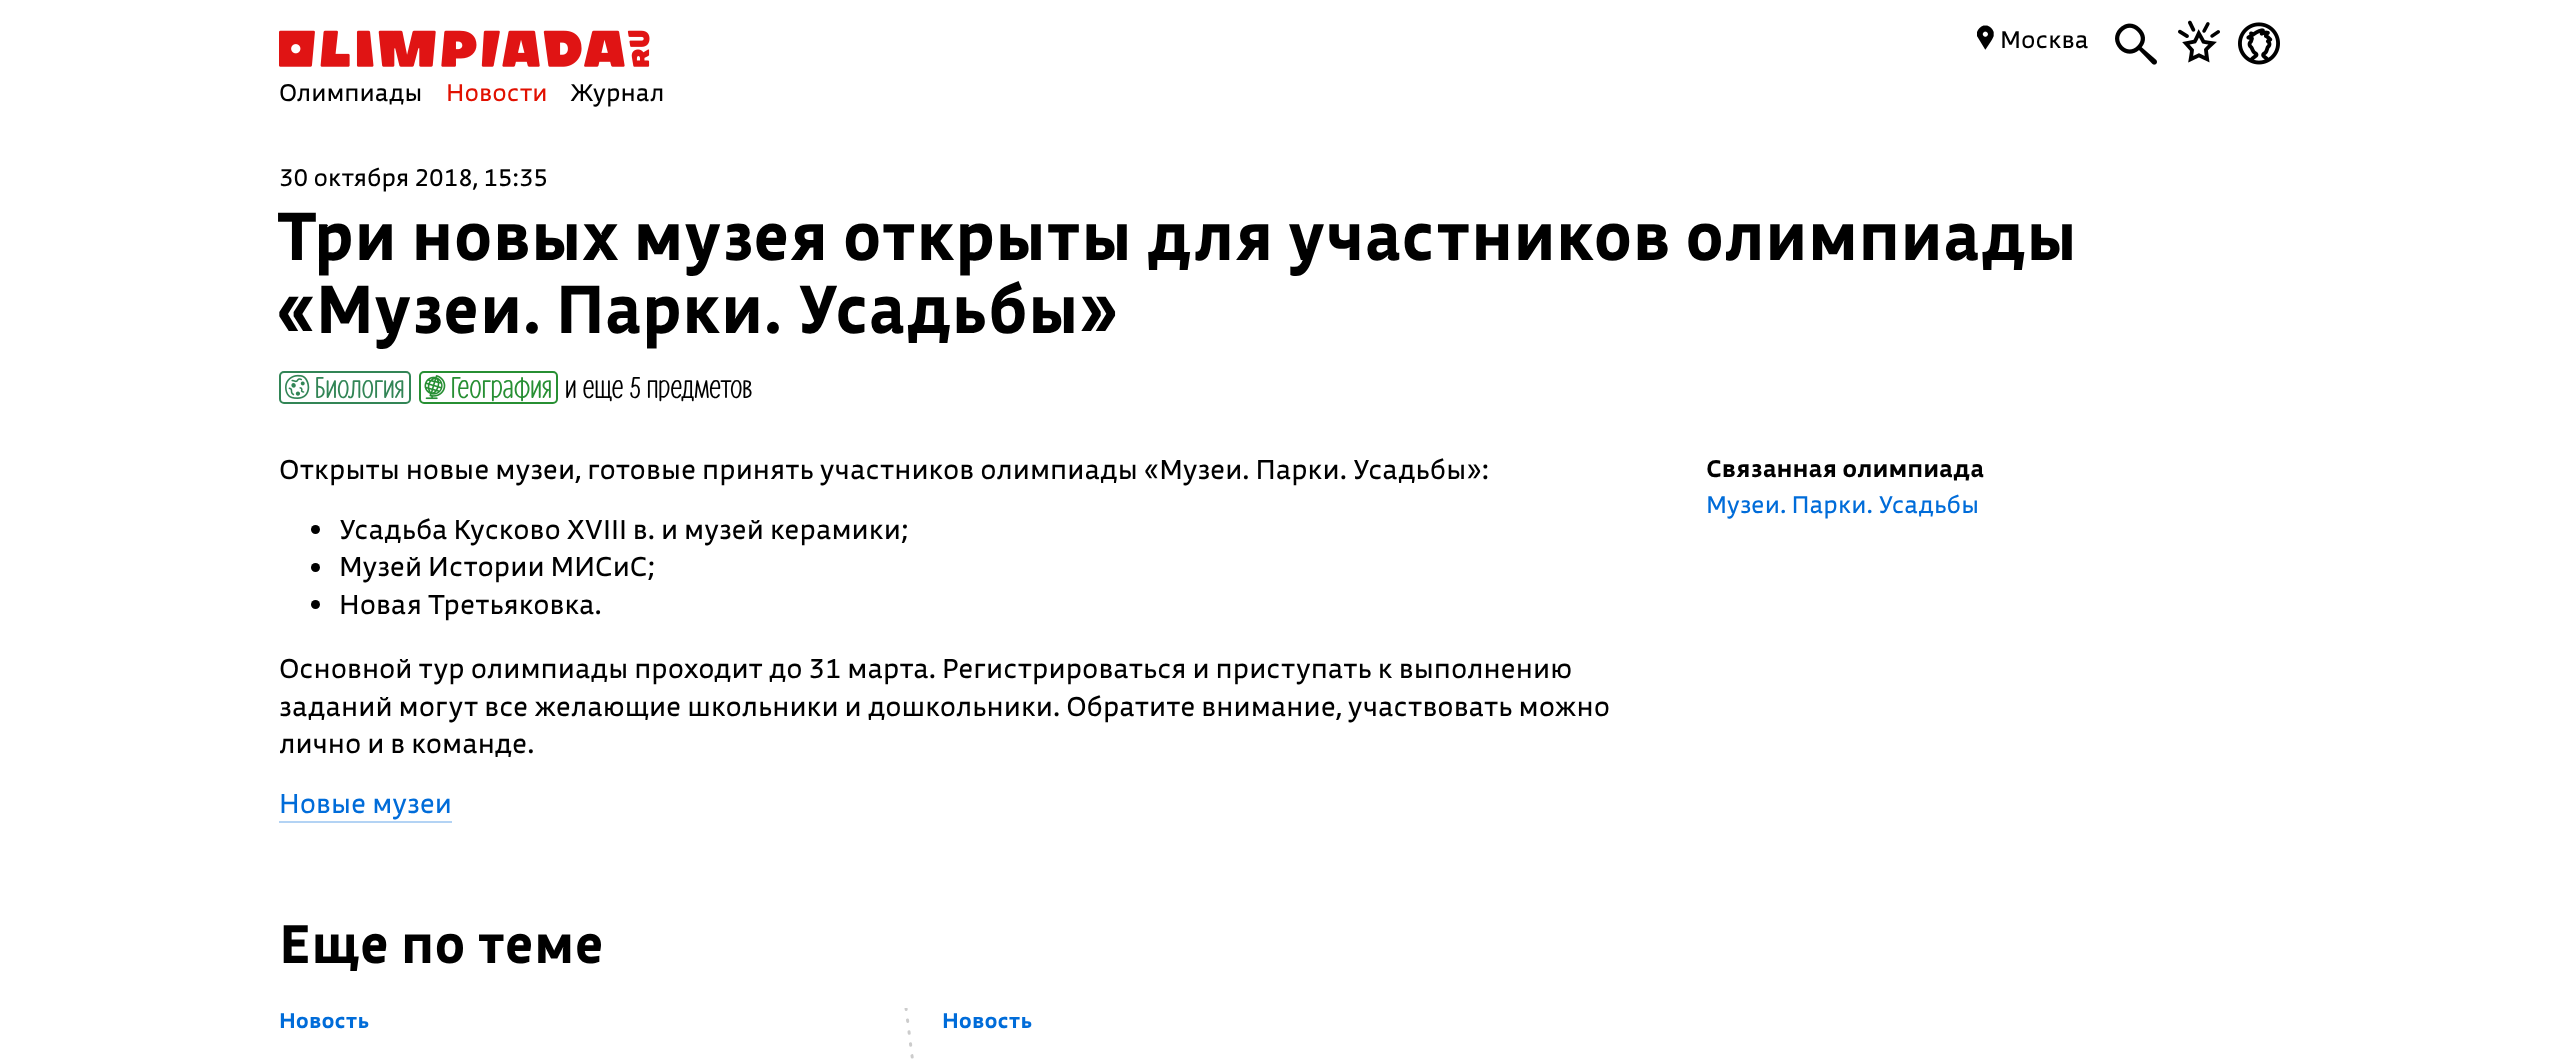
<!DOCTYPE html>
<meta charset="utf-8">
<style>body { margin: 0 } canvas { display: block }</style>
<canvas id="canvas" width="2567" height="1062"></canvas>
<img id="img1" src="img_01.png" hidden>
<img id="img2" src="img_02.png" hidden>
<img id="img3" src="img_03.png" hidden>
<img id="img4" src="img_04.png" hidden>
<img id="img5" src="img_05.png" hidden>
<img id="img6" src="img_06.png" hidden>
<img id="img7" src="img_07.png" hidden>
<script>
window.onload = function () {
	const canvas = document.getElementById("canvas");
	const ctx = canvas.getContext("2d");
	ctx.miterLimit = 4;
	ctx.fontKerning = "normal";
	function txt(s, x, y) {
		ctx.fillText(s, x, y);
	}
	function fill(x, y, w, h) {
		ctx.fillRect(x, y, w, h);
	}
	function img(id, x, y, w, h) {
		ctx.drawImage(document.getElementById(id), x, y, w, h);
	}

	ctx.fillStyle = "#FFFFFF";
	fill(0, 0, 2567, 1062);
	img("img1", 279, 30, 371, 37);
	img("img2", 1977, 25, 17, 25);
	img("img3", 2115, 23, 42, 42);
	img("img4", 2178, 20, 42, 43);
	img("img5", 2238, 22, 42, 43);
	ctx.beginPath();
	ctx.roundRect(280, 372, 130, 31, 4);
	ctx.strokeStyle = "#328556";
	ctx.lineWidth = 2;
	ctx.stroke();
	img("img6", 285, 374, 25, 25);
	ctx.beginPath();
	ctx.roundRect(420, 372, 137, 31, 4);
	ctx.strokeStyle = "#278F33";
	ctx.stroke();
	img("img7", 424, 375, 22, 25);
	ctx.fillStyle = "#000000";
	ctx.beginPath();
	ctx.arc(315.5, 529.5, 4.5, 0, Math.PI * 2);
	ctx.fill();
	ctx.beginPath();
	ctx.arc(315.5, 567.5, 4.5, 0, Math.PI * 2);
	ctx.fill();
	ctx.beginPath();
	ctx.arc(315.5, 604.5, 4.5, 0, Math.PI * 2);
	ctx.fill();
	ctx.fillStyle = "#B3D3F4";
	fill(279, 821, 173, 2);
	ctx.save();
	ctx.beginPath();
	ctx.rect(902, 1008, 30, 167);
	ctx.clip();
	ctx.beginPath();
	ctx.moveTo(906, 1008);
	ctx.lineTo(927, 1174.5);
	ctx.strokeStyle = "#CCCCCC";
	ctx.lineWidth = 3;
	ctx.lineCap = "round";
	ctx.setLineDash([1.5, 10.5]);
	ctx.stroke();
	ctx.restore();
	ctx.font = "24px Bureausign";
	ctx.fillStyle = "#000000";
	txt("Москва", 2000, 48);
	txt("Олимпиады", 279, 101);
	ctx.fillStyle = "#E11000";
	txt("Новости", 446, 101);
	ctx.fillStyle = "#000000";
	txt("Журнал", 570, 101);
	txt("30 октября 2018, 15:35", 279, 186);
	ctx.font = "bold 67.5px 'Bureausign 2'";
	txt("Три новых музея открыты для участников олимпиады", 276, 260);
	txt("«Музеи. Парки. Усадьбы»", 276, 333);
	ctx.font = "30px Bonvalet";
	ctx.fillStyle = "#328556";
	txt("Биология", 315, 398);
	ctx.fillStyle = "#278F33";
	txt("География", 451, 398);
	ctx.fillStyle = "#000000";
	txt("и еще 5 предметов", 565, 398);
	ctx.font = "27px Bureausign";
	txt("Открыты новые музеи, готовые принять участников олимпиады «Музеи. Парки. Усадьбы»:", 279, 479);
	txt("Усадьба Кусково XVIII в. и музей керамики;", 339, 539);
	txt("Музей Истории МИСиС;", 339, 576);
	txt("Новая Третьяковка.", 339, 614);
	txt("Основной тур олимпиады проходит до 31 марта. Регистрироваться и приступать к выполнению", 279, 678);
	txt("заданий могут все желающие школьники и дошкольники. Обратите внимание, участвовать можно", 279, 716);
	txt("лично и в команде.", 279, 753);
	ctx.fillStyle = "#006CD9";
	txt("Новые музеи", 279, 813);
	ctx.font = "bold 24px Bureausign";
	ctx.fillStyle = "#000000";
	txt("Связанная олимпиада", 1706, 477);
	ctx.font = "24px Bureausign";
	ctx.fillStyle = "#006CD9";
	txt("Музеи. Парки. Усадьбы", 1706, 513);
	ctx.font = "bold 54px 'Bureausign 2'";
	ctx.fillStyle = "#000000";
	txt("Еще по теме", 279, 963);
	ctx.font = "bold 21px Bureausign";
	ctx.fillStyle = "#006CD9";
	txt("Новость", 279, 1028);
	txt("Новость", 942, 1028);
};
</script>
